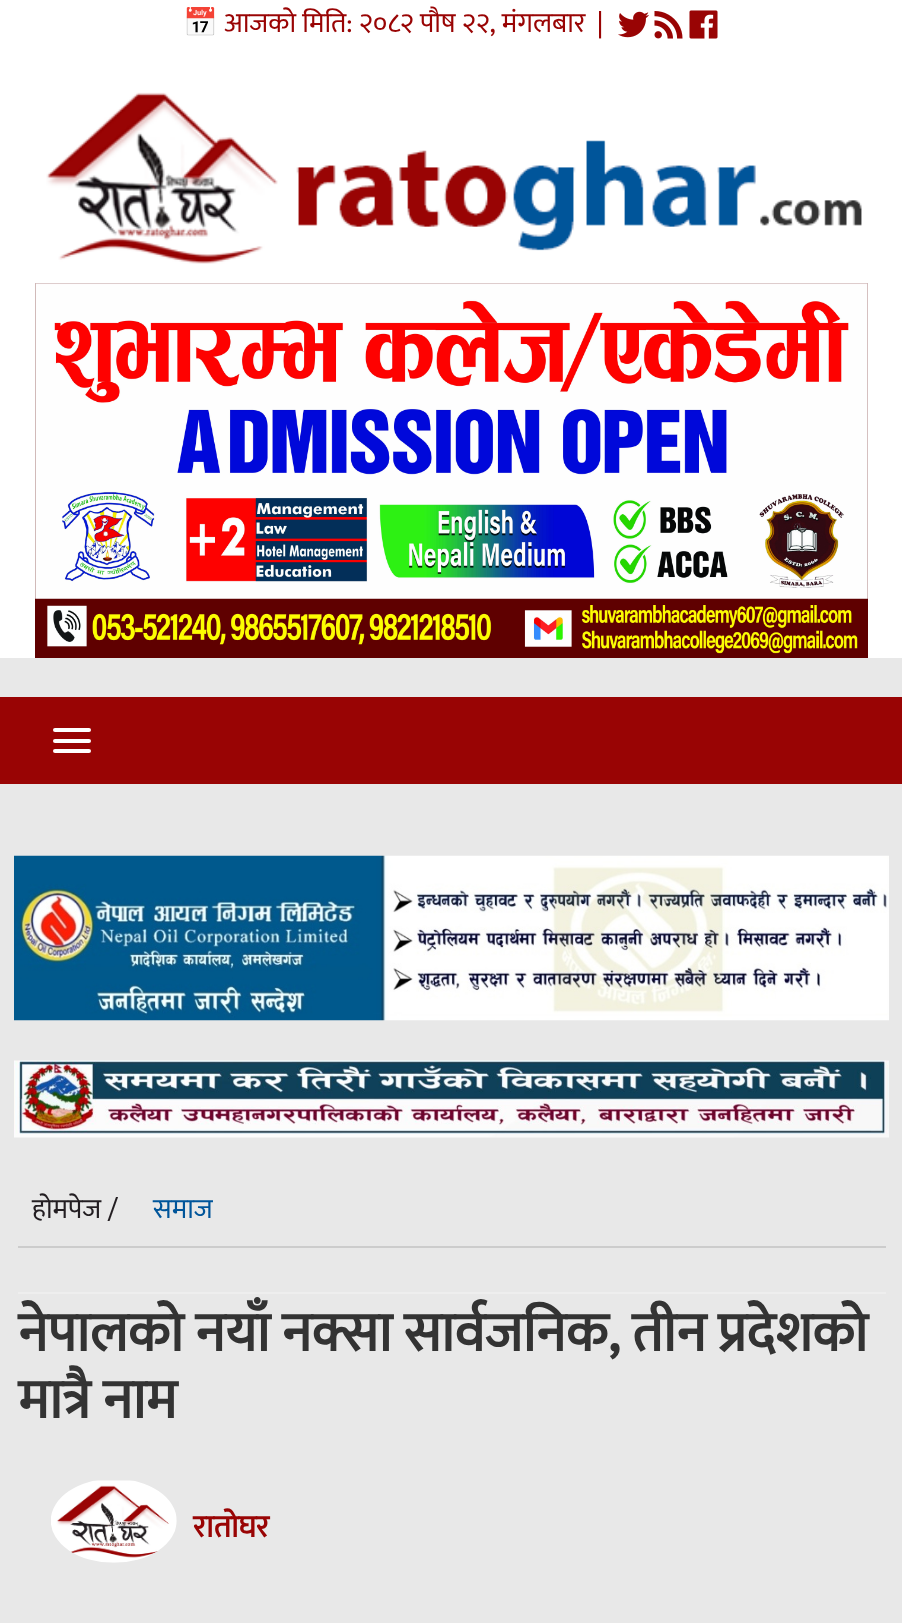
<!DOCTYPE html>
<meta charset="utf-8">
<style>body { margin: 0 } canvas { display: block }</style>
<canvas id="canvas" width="902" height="1623"></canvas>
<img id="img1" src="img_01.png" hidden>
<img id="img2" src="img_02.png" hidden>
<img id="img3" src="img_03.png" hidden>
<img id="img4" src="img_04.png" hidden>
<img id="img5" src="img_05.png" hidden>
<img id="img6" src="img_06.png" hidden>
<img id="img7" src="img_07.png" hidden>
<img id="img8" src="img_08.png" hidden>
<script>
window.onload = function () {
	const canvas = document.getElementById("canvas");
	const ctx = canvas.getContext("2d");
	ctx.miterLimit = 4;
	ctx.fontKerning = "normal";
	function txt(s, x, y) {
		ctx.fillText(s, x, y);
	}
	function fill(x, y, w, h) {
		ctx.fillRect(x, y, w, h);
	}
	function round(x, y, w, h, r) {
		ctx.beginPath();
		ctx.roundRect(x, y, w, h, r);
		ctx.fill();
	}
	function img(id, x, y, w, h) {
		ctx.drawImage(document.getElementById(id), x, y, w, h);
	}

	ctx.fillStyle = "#E8E8E8";
	fill(0, 0, 902, 1623);
	ctx.fillStyle = "#FFFFFF";
	fill(0, 0, 902, 658);
	img("img1", 618, 11, 31, 27);
	img("img2", 654, 11, 29, 28);
	img("img3", 689, 10, 29, 29);
	img("img4", 46, 92, 816, 172);
	img("img5", 35, 283, 833, 375);
	ctx.fillStyle = "#990404";
	fill(0, 697, 902, 87);
	ctx.fillStyle = "#FFFFFF";
	round(53, 728, 38, 4, 2);
	round(53, 739, 38, 4, 2);
	round(53, 749, 38, 4, 2);
	img("img6", 14, 855, 875, 166);
	img("img7", 14, 1060, 875, 78);
	ctx.fillStyle = "#CCCCCC";
	fill(18, 1246, 868, 2);
	ctx.fillStyle = "#EEEEEE";
	fill(18, 1292, 868, 2);
	img("img8", 51, 1480, 126, 83);
	ctx.font = "28px Noto Color Emoji";
	ctx.fillStyle = "#990404";
	txt("📅", 183, 32);
	ctx.font = "28px Ek Mukta";
	txt("आजको मिति: २०८२ पौष २२, मंगलबार", 224, 32);
	txt("|", 597, 32);
	ctx.fillStyle = "#231E22";
	txt("होमपेज /", 32, 1218);
	ctx.fillStyle = "#00559A";
	txt("समाज", 153, 1218);
	ctx.wordSpacing = "-0.5px";
	ctx.font = "bold 56px Ek Mukta";
	ctx.fillStyle = "#333333";
	txt("नेपालको नयाँ नक्सा सार्वजनिक, तीन प्रदेशको", 18, 1351);
	ctx.wordSpacing = "0px";
	txt("मात्रै नाम", 18, 1418);
	ctx.font = "bold 31.5px Ek Mukta";
	ctx.fillStyle = "#990404";
	txt("रातोघर", 193, 1537);
};
</script>
